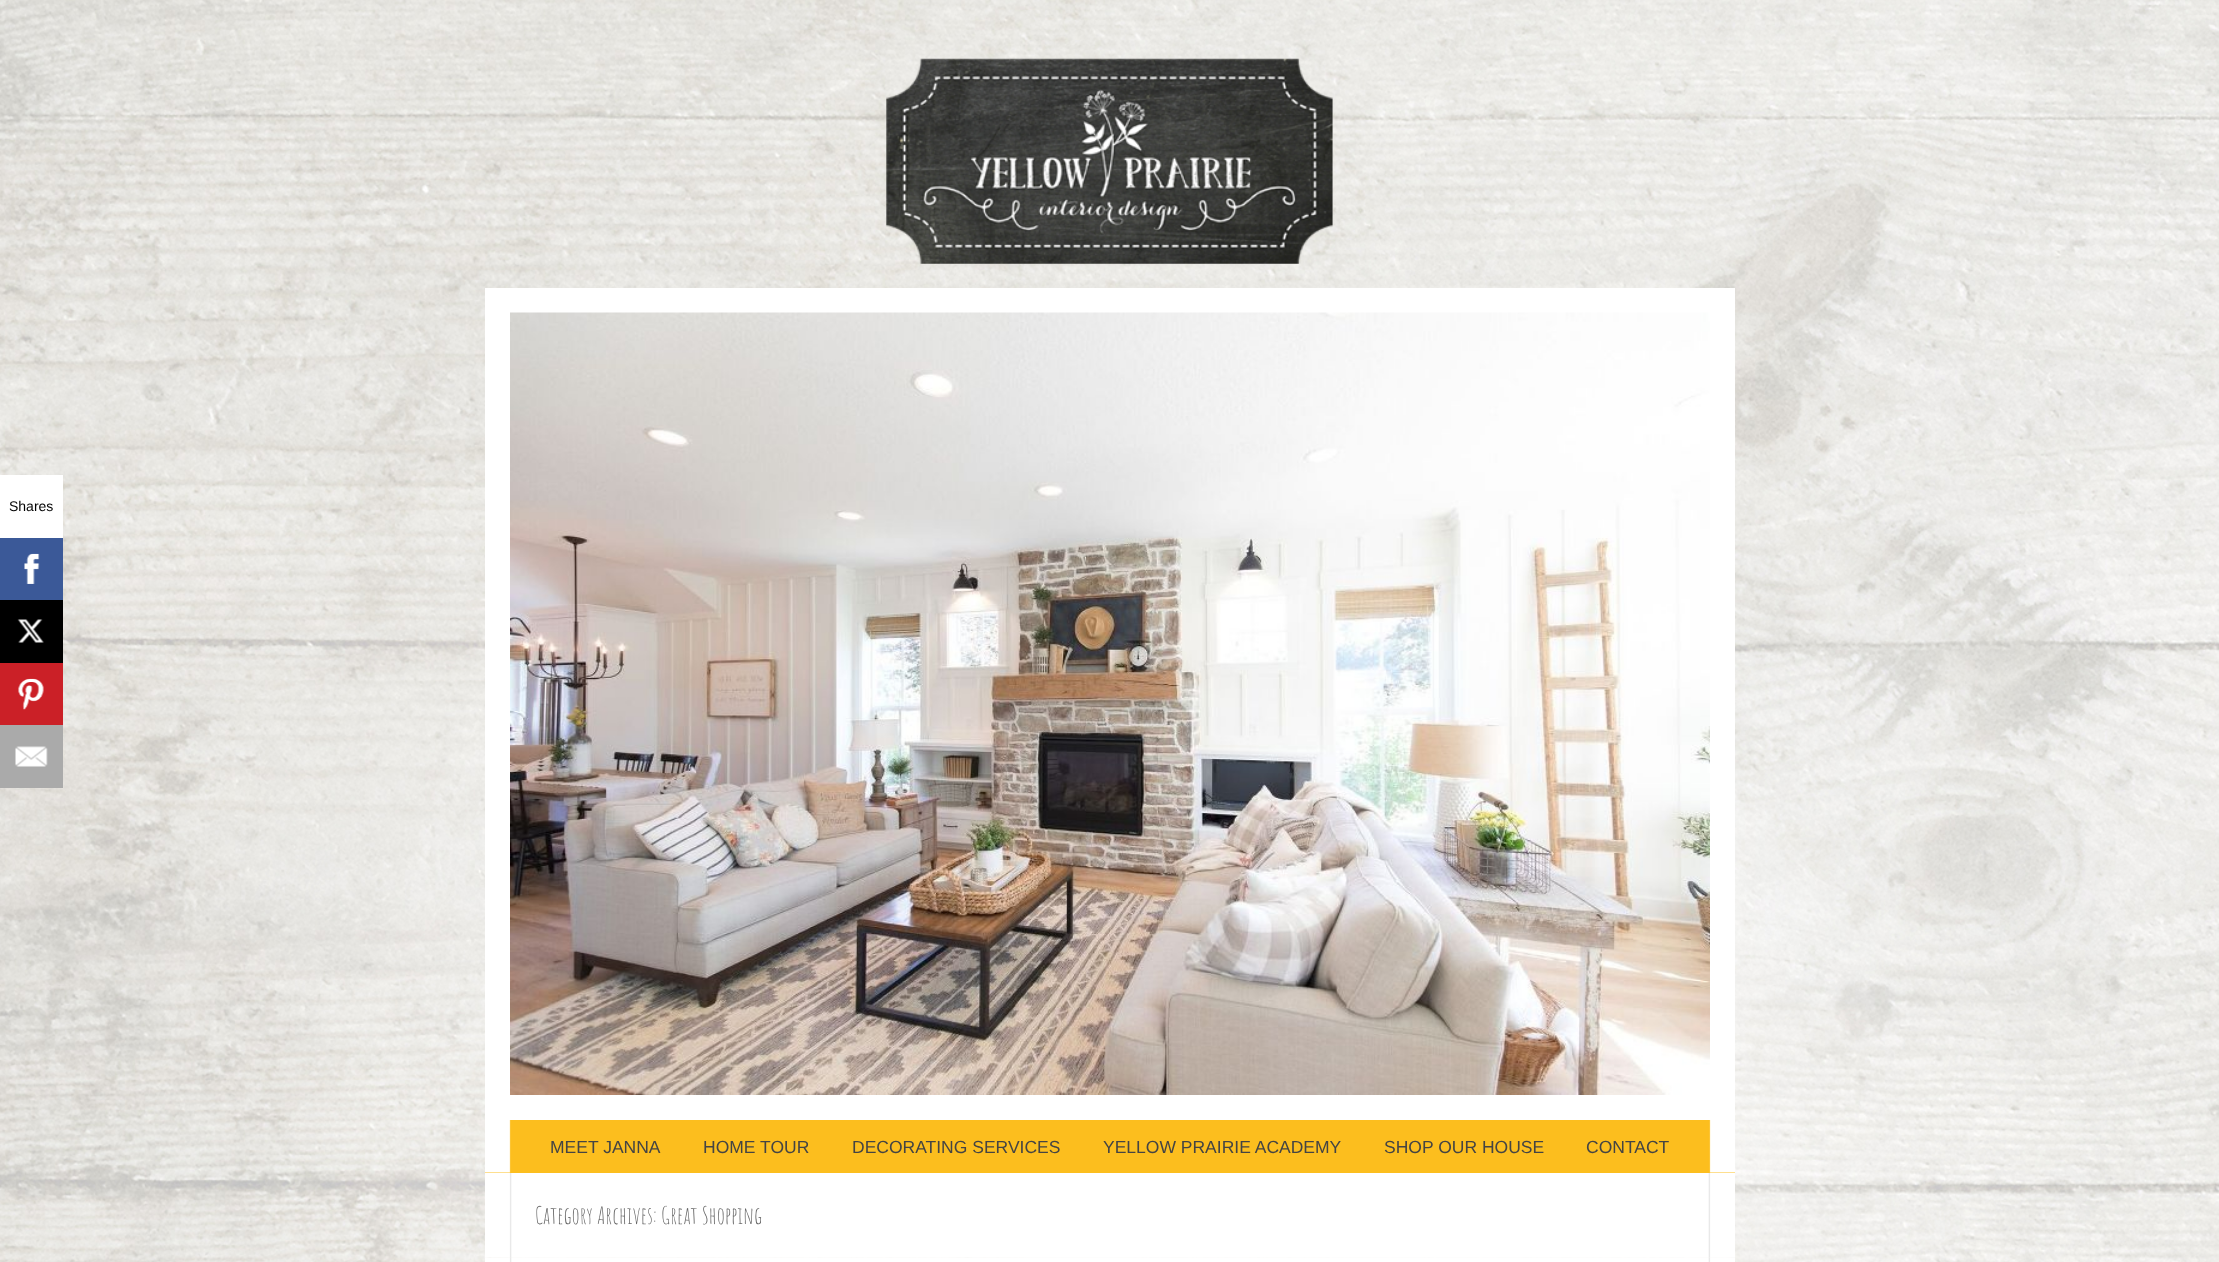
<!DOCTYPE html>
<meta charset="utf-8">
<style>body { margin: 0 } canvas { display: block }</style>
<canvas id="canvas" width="2219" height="1262"></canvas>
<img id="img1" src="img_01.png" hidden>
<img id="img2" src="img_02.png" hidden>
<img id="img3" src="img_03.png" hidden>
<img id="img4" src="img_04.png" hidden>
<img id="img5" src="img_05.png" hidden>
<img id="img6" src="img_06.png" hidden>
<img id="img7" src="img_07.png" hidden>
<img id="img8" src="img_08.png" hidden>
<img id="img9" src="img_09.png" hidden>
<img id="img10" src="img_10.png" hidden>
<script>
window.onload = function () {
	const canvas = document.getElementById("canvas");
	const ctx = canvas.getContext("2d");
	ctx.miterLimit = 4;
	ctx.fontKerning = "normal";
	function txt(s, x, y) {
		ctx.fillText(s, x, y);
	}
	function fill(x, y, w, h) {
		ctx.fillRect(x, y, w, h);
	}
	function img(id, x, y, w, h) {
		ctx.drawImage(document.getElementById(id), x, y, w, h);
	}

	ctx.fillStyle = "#FFFFFF";
	fill(0, 0, 2219, 1262);
	img("img1", 0, 0, 2219, 1262);
	fill(0, 475, 63, 63);
	ctx.fillStyle = "#3B5998";
	fill(0, 538, 63, 62);
	img("img2", 24, 553, 16, 31);
	ctx.fillStyle = "#000000";
	fill(0, 600, 63, 63);
	img("img3", 17, 619, 27, 24);
	ctx.fillStyle = "#CB2027";
	fill(0, 663, 63, 62);
	img("img4", 18, 678, 26, 32);
	ctx.fillStyle = "#AAAAAA";
	fill(0, 725, 63, 63);
	img("img5", 15, 746, 33, 21);
	img("img6", 886, 58, 447, 206);
	ctx.strokeStyle = "#FFFFFF";
	ctx.lineWidth = 25;
	ctx.strokeRect(497.5, 300.5, 1225, 807);
	img("img7", 510, 312, 1200, 783);
	ctx.fillStyle = "#FCBE1E";
	fill(485, 1172, 1250, 1);
	img("img8", 485, 1120, 1250, 53);
	img("img9", 485, 1173, 1250, 85);
	img("img10", 485, 1257, 1250, 5);
	ctx.font = "14px Liberation Sans";
	ctx.fillStyle = "#000000";
	txt("Shares", 9, 511);
	ctx.font = "17.5px Liberation Sans";
	ctx.fillStyle = "#444444";
	txt("MEET JANNA", 550, 1153);
	txt("HOME TOUR", 703, 1153);
	txt("DECORATING SERVICES", 852, 1153);
	txt("YELLOW PRAIRIE ACADEMY", 1103, 1153);
	txt("SHOP OUR HOUSE", 1384, 1153);
	txt("CONTACT", 1586, 1153);
	ctx.font = "23.75px Amatic SC";
	ctx.fillStyle = "#666666";
	txt("Category Archives: Great Shopping", 535, 1224);
};
</script>
